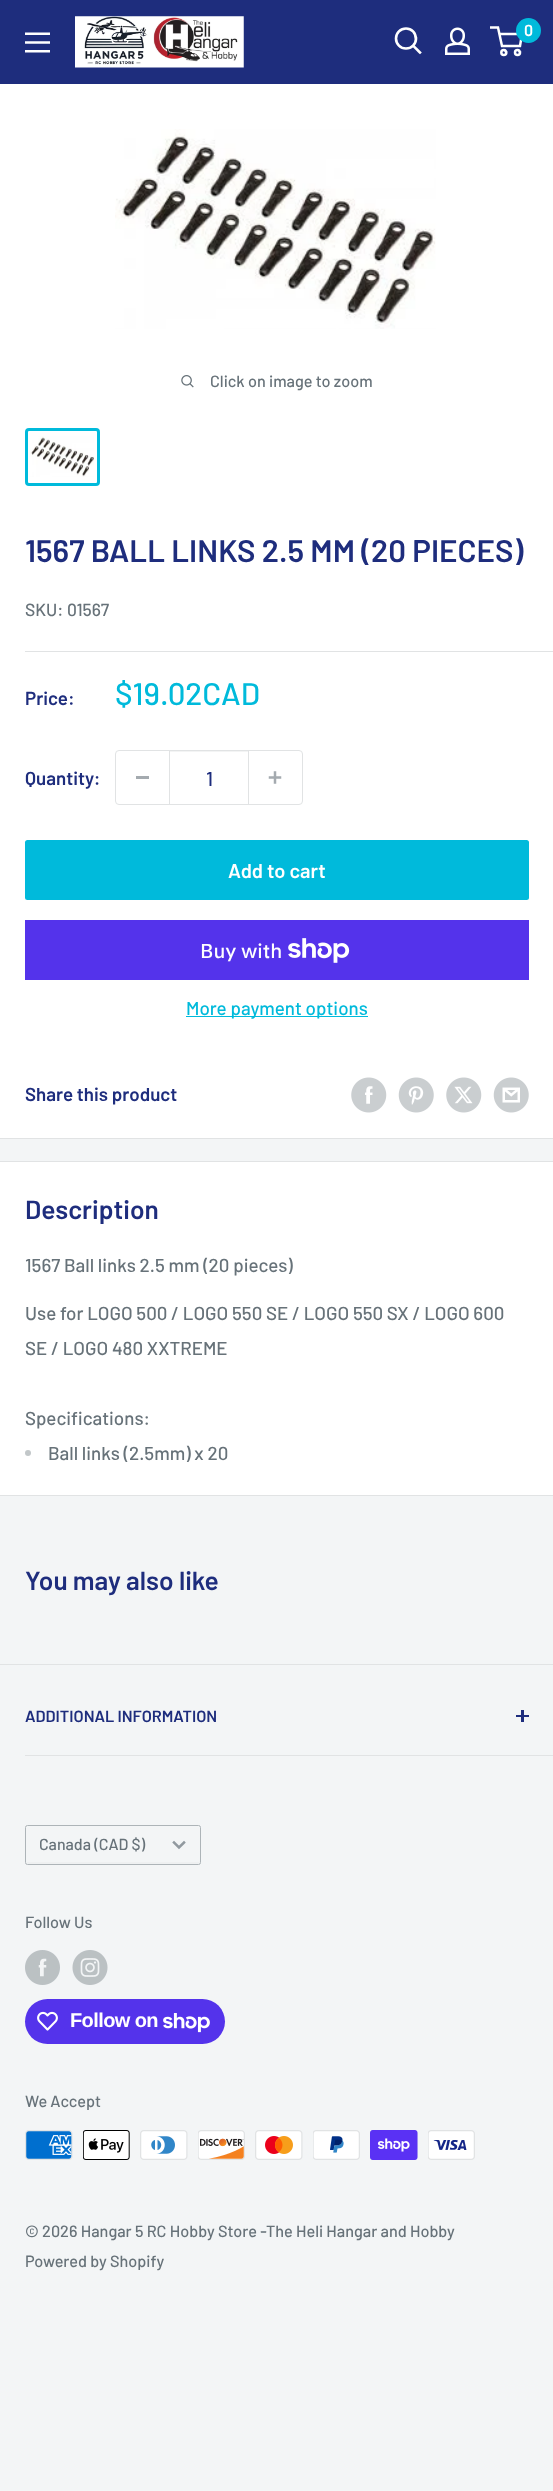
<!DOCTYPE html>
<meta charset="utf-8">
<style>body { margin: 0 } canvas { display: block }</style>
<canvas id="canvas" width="553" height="2491"></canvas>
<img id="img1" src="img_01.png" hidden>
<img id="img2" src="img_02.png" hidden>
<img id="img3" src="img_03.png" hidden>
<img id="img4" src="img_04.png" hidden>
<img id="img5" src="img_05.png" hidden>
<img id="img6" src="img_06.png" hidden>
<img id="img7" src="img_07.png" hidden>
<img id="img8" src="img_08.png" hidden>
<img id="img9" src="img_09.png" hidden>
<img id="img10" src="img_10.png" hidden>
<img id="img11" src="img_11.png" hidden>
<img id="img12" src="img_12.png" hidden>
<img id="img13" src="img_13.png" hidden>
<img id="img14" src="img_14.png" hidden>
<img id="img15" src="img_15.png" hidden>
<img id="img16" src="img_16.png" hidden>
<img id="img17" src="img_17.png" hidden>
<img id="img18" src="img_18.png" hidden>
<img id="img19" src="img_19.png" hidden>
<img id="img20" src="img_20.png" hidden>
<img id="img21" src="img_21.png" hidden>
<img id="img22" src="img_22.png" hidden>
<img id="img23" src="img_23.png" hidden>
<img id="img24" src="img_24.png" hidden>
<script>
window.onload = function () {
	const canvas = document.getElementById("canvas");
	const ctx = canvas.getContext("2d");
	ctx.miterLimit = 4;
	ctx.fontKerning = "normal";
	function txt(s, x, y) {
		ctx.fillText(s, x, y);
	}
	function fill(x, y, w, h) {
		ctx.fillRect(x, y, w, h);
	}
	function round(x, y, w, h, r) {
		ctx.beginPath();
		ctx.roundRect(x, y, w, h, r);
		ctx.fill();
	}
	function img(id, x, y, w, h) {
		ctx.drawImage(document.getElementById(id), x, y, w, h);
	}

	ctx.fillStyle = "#F3F5F6";
	fill(0, 0, 553, 2491);
	ctx.fillStyle = "#1E2D7D";
	fill(0, 0, 553, 84);
	img("img1", 75, 16, 169, 52);
	ctx.beginPath();
	ctx.moveTo(420, 52.5);
	ctx.lineTo(413.5, 46);
	ctx.strokeStyle = "#FFFFFF";
	ctx.lineWidth = 2.6;
	ctx.lineCap = "square";
	ctx.stroke();
	ctx.beginPath();
	ctx.arc(406, 38.5, 10, 0, Math.PI * 2);
	ctx.stroke();
	img("img2", 445, 27, 25, 28);
	ctx.beginPath();
	ctx.arc(503.8, 52.5, 2.5, 0, Math.PI * 2);
	ctx.lineWidth = 2.5;
	ctx.stroke();
	ctx.beginPath();
	ctx.arc(517.5, 52.5, 2.5, 0, Math.PI * 2);
	ctx.stroke();
	ctx.beginPath();
	ctx.moveTo(499, 34);
	ctx.lineTo(522, 34);
	ctx.lineTo(520, 46);
	ctx.lineTo(502, 46);
	ctx.lineTo(498, 27.5);
	ctx.lineTo(490, 27.5);
	ctx.lineCap = "butt";
	ctx.stroke();
	ctx.fillStyle = "#00BADB";
	ctx.beginPath();
	ctx.arc(528.5, 30.5, 12.5, 0, Math.PI * 2);
	ctx.fill();
	img("img3", 25, 32, 25, 21);
	ctx.fillStyle = "#FFFFFF";
	fill(0, 84, 553, 442);
	img("img4", 115, 129, 321, 200);
	img("img5", 181, 375, 13, 13);
	ctx.beginPath();
	ctx.roundRect(26.5, 429.5, 72, 55, 2.5);
	ctx.strokeStyle = "#00BADB";
	ctx.lineWidth = 3;
	ctx.stroke();
	img("img6", 30, 436, 64, 41);
	ctx.beginPath();
	ctx.moveTo(0, 526);
	ctx.lineTo(0, 528);
	ctx.lineTo(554, 528);
	ctx.lineTo(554, 1138);
	ctx.lineTo(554, 526);
	ctx.closePath();
	ctx.fill();
	fill(0, 528, 553, 610);
	ctx.fillStyle = "#E1E3E4";
	fill(0, 1138, 553, 1);
	fill(25, 651, 528, 1);
	ctx.beginPath();
	ctx.roundRect(115.5, 750.5, 187, 54, 3.5);
	ctx.strokeStyle = "#E1E3E4";
	ctx.lineWidth = 1;
	ctx.stroke();
	ctx.fillStyle = "#A4AAAF";
	fill(136, 776, 13, 3);
	ctx.fillStyle = "#F3F4F4";
	fill(170, 751, 78, 1);
	ctx.fillStyle = "#E1E3E4";
	fill(248, 751, 1, 53);
	fill(169, 751, 1, 53);
	img("img7", 268, 771, 14, 13);
	ctx.fillStyle = "#00BADB";
	round(25, 840, 504, 60, 2.5);
	ctx.fillStyle = "#5433EB";
	fill(25, 920, 504, 60);
	img("img8", 288, 938, 62, 25);
	ctx.fillStyle = "#00BADB";
	fill(186, 1016, 182, 1);
	img("img9", 351, 1077, 36, 36);
	img("img10", 398, 1077, 36, 36);
	img("img11", 446, 1077, 36, 36);
	img("img12", 493, 1077, 36, 36);
	ctx.fillStyle = "#FFFFFF";
	fill(0, 1162, 553, 333);
	ctx.fillStyle = "#E1E3E4";
	fill(0, 1161, 553, 1);
	fill(0, 1495, 553, 1);
	ctx.fillStyle = "#C2C7C9";
	ctx.beginPath();
	ctx.arc(28, 1453, 3, 0, Math.PI * 2);
	ctx.fill();
	ctx.fillStyle = "#E1E3E4";
	fill(0, 1664, 553, 1);
	fill(25, 1755, 528, 1);
	ctx.fillStyle = "#1E2D7D";
	fill(521, 1710, 3, 12);
	fill(516, 1715, 13, 2);
	ctx.fillStyle = "#EEF0F1";
	ctx.beginPath();
	ctx.moveTo(26, 1861);
	ctx.bezierCurveTo(26, 1862, 26, 1864, 27, 1864);
	ctx.lineTo(199, 1864);
	ctx.bezierCurveTo(200, 1864, 200, 1862, 200, 1861);
	ctx.lineTo(199, 1862);
	ctx.lineTo(28, 1862);
	ctx.bezierCurveTo(27, 1862, 26, 1862, 26, 1861);
	ctx.closePath();
	ctx.fill();
	ctx.beginPath();
	ctx.roundRect(25.5, 1825.5, 175, 39, 2);
	ctx.strokeStyle = "#ADB4B8";
	ctx.stroke();
	ctx.beginPath();
	ctx.moveTo(184, 1842.5);
	ctx.lineTo(179, 1847.5);
	ctx.lineTo(174, 1842.5);
	ctx.strokeStyle = "#91999F";
	ctx.lineWidth = 2.5;
	ctx.lineCap = "square";
	ctx.stroke();
	img("img13", 25, 1950, 35, 35);
	img("img14", 72, 1950, 36, 35);
	ctx.fillStyle = "#5433EB";
	round(25, 1999, 200, 45, 22.5);
	img("img15", 37, 2011, 21, 20);
	img("img16", 163, 2013, 47, 20);
	img("img17", 25, 2130, 48, 30);
	img("img18", 83, 2130, 47, 30);
	img("img19", 140, 2130, 48, 30);
	img("img20", 198, 2130, 47, 30);
	img("img21", 255, 2130, 48, 30);
	img("img22", 313, 2130, 47, 30);
	img("img23", 370, 2130, 48, 30);
	img("img24", 428, 2130, 47, 30);
	ctx.font = "600 16px Barlow";
	ctx.fillStyle = "#FFFFFF";
	txt("0", 524, 36);
	ctx.font = "500 16.25px Barlow";
	ctx.fillStyle = "#677279";
	txt("Click on image to zoom", 210, 387);
	ctx.font = "600 31.25px Barlow";
	ctx.fillStyle = "#1E2D7D";
	txt("1567 BALL LINKS 2.5 MM (20 PIECES)", 25, 562);
	ctx.font = "500 17.5px Barlow";
	ctx.fillStyle = "#677279";
	txt("SKU: 01567", 25, 616);
	ctx.font = "600 18.75px Barlow";
	ctx.fillStyle = "#1E2D7D";
	txt("Price:", 25, 705);
	ctx.font = "500 31.25px Barlow";
	ctx.fillStyle = "#00BADB";
	txt("$19.02CAD", 115, 705);
	ctx.font = "600 18.75px Barlow";
	ctx.fillStyle = "#1E2D7D";
	txt("Quantity:", 25, 785);
	ctx.font = "500 20px Barlow";
	txt("1", 206, 786);
	ctx.font = "600 20px Barlow";
	ctx.fillStyle = "#FFFFFF";
	txt("Add to cart", 228, 878);
	ctx.font = "500 20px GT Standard";
	txt("Buy with", 200, 958);
	ctx.font = "500 18.75px Barlow";
	ctx.fillStyle = "#00BADB";
	txt("More payment options", 186, 1015);
	ctx.font = "600 18.75px Barlow";
	ctx.fillStyle = "#1E2D7D";
	txt("Share this product", 25, 1101);
	ctx.font = "600 26.25px Barlow";
	txt("Description", 25, 1219);
	ctx.font = "500 18.75px Barlow";
	ctx.fillStyle = "#677279";
	txt("1567 Ball links 2.5 mm (20 pieces)", 25, 1272);
	txt("Use for LOGO 500 / LOGO 550 SE / LOGO 550 SX / LOGO 600", 25, 1320);
	txt("SE / LOGO 480 XXTREME", 25, 1355);
	txt("Specifications:", 25, 1425);
	txt("Ball links (2.5mm) x 20", 48, 1460);
	ctx.font = "600 26.25px Barlow";
	ctx.fillStyle = "#1E2D7D";
	txt("You may also like", 25, 1590);
	ctx.font = "600 16.25px Barlow";
	txt("ADDITIONAL INFORMATION", 25, 1722);
	ctx.font = "500 16px Barlow";
	ctx.fillStyle = "#677279";
	txt("Canada (CAD $)", 39, 1850);
	ctx.font = "500 16.25px Barlow";
	txt("Follow Us", 25, 1928);
	ctx.letterSpacing = "-0.6px";
	ctx.font = "bold 20px Liberation Sans";
	ctx.fillStyle = "#FFFFFF";
	txt("Follow on", 70, 2027);
	ctx.letterSpacing = "0px";
	ctx.font = "500 16.25px Barlow";
	ctx.fillStyle = "#677279";
	txt("We Accept", 25, 2107);
	txt("© 2026 Hangar 5 RC Hobby Store -The Heli Hangar and Hobby", 25, 2237);
	txt("Powered by Shopify", 25, 2267);
};
</script>
